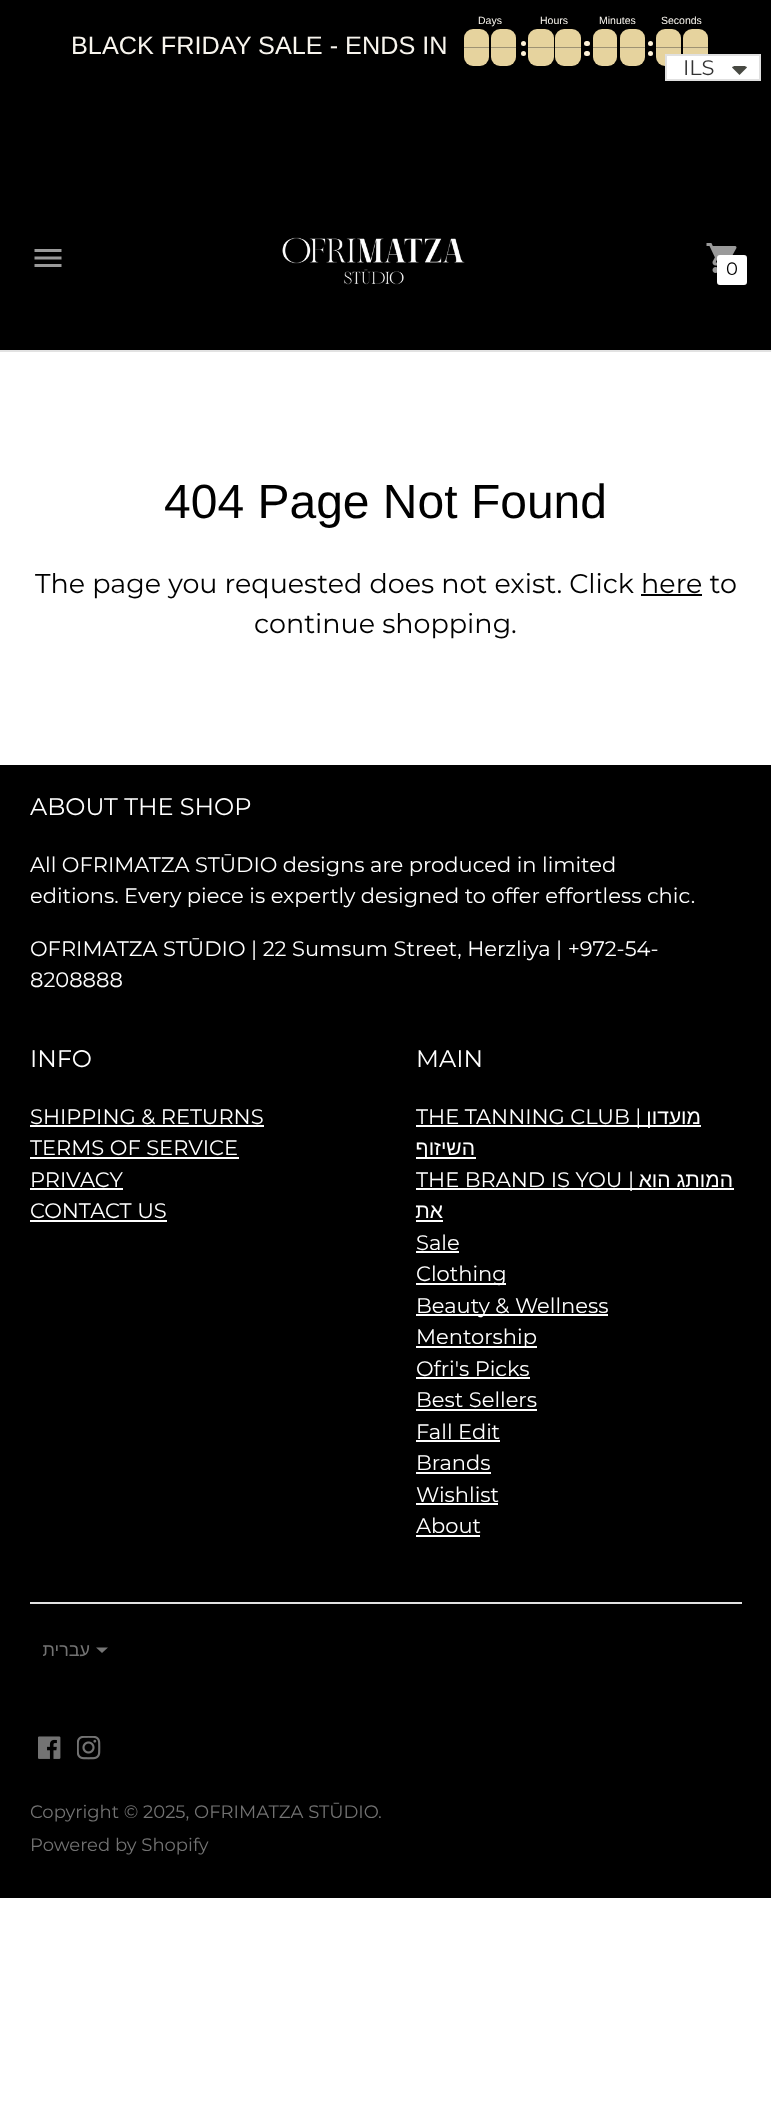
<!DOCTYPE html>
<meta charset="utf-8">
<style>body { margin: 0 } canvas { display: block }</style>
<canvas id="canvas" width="771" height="2124"></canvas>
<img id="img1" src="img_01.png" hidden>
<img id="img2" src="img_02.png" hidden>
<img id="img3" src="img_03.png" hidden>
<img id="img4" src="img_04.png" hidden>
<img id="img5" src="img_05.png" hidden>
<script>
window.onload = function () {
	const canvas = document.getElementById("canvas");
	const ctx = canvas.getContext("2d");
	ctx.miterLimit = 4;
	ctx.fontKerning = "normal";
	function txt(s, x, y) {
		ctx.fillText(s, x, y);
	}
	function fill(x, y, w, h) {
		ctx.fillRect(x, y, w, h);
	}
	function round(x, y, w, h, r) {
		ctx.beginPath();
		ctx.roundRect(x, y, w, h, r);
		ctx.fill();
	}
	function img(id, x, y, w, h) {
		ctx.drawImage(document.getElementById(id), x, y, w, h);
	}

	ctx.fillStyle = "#FFFFFF";
	fill(0, 0, 771, 2124);
	ctx.fillStyle = "#000000";
	fill(0, 0, 771, 350);
	ctx.fillStyle = "#E2E2E2";
	fill(0, 350, 771, 2);
	ctx.fillStyle = "#E6D39E";
	ctx.beginPath();
	ctx.roundRect(464, 29, 25, 19, [9, 9, 0, 0]);
	ctx.fill();
	ctx.fillStyle = "rgba(51, 51, 51, 0.4)";
	fill(464, 47, 25, 1);
	ctx.fillStyle = "#E6D39E";
	ctx.beginPath();
	ctx.roundRect(464, 48, 25, 18, [0, 0, 9, 9]);
	ctx.fill();
	ctx.fillStyle = "rgba(204, 204, 204, 0.1)";
	fill(464, 48, 25, 2);
	ctx.fillStyle = "#E6D39E";
	ctx.beginPath();
	ctx.roundRect(491, 29, 25, 19, [9, 9, 0, 0]);
	ctx.fill();
	ctx.fillStyle = "rgba(51, 51, 51, 0.4)";
	fill(491, 47, 25, 1);
	ctx.fillStyle = "#E6D39E";
	ctx.beginPath();
	ctx.roundRect(491, 48, 25, 18, [0, 0, 9, 9]);
	ctx.fill();
	ctx.fillStyle = "rgba(204, 204, 204, 0.1)";
	fill(491, 48, 25, 2);
	ctx.fillStyle = "#E6D39E";
	ctx.beginPath();
	ctx.roundRect(528, 29, 26, 19, [9, 9, 0, 0]);
	ctx.fill();
	ctx.fillStyle = "rgba(51, 51, 51, 0.4)";
	fill(528, 47, 26, 1);
	ctx.fillStyle = "#E6D39E";
	ctx.beginPath();
	ctx.roundRect(528, 48, 26, 18, [0, 0, 9, 9]);
	ctx.fill();
	ctx.fillStyle = "rgba(204, 204, 204, 0.1)";
	fill(528, 48, 26, 2);
	ctx.fillStyle = "#E6D39E";
	ctx.beginPath();
	ctx.roundRect(555, 29, 26, 19, [9, 9, 0, 0]);
	ctx.fill();
	ctx.fillStyle = "rgba(51, 51, 51, 0.4)";
	fill(555, 47, 26, 1);
	ctx.fillStyle = "#E6D39E";
	ctx.beginPath();
	ctx.roundRect(555, 48, 26, 18, [0, 0, 9, 9]);
	ctx.fill();
	ctx.fillStyle = "rgba(204, 204, 204, 0.1)";
	fill(555, 48, 26, 2);
	ctx.fillStyle = "#E6D39E";
	ctx.beginPath();
	ctx.roundRect(593, 29, 24, 19, [9, 9, 0, 0]);
	ctx.fill();
	ctx.fillStyle = "rgba(51, 51, 51, 0.4)";
	fill(593, 47, 24, 1);
	ctx.fillStyle = "#E6D39E";
	ctx.beginPath();
	ctx.roundRect(593, 48, 24, 18, [0, 0, 9, 9]);
	ctx.fill();
	ctx.fillStyle = "rgba(204, 204, 204, 0.1)";
	fill(593, 48, 24, 2);
	ctx.fillStyle = "#E6D39E";
	ctx.beginPath();
	ctx.roundRect(620, 29, 25, 19, [9, 9, 0, 0]);
	ctx.fill();
	ctx.fillStyle = "rgba(51, 51, 51, 0.4)";
	fill(620, 47, 25, 1);
	ctx.fillStyle = "#E6D39E";
	ctx.beginPath();
	ctx.roundRect(620, 48, 25, 18, [0, 0, 9, 9]);
	ctx.fill();
	ctx.fillStyle = "rgba(204, 204, 204, 0.1)";
	fill(620, 48, 25, 2);
	ctx.fillStyle = "#E6D39E";
	ctx.beginPath();
	ctx.roundRect(656, 29, 25, 19, [9, 9, 0, 0]);
	ctx.fill();
	ctx.fillStyle = "rgba(51, 51, 51, 0.4)";
	fill(656, 47, 25, 1);
	ctx.fillStyle = "#E6D39E";
	ctx.beginPath();
	ctx.roundRect(656, 48, 25, 18, [0, 0, 9, 9]);
	ctx.fill();
	ctx.fillStyle = "rgba(204, 204, 204, 0.1)";
	fill(656, 48, 25, 2);
	ctx.fillStyle = "#E6D39E";
	ctx.beginPath();
	ctx.roundRect(683, 29, 25, 19, [9, 9, 0, 0]);
	ctx.fill();
	ctx.fillStyle = "rgba(51, 51, 51, 0.4)";
	fill(683, 47, 25, 1);
	ctx.fillStyle = "#E6D39E";
	fill(683, 48, 25, 6);
	ctx.fillStyle = "rgba(204, 204, 204, 0.1)";
	fill(683, 48, 25, 2);
	ctx.fillStyle = "#FFF3D9";
	ctx.beginPath();
	ctx.arc(523.5, 43.5, 2.5, 0, Math.PI * 2);
	ctx.fill();
	ctx.beginPath();
	ctx.arc(523.5, 53.5, 2.5, 0, Math.PI * 2);
	ctx.fill();
	round(584, 41, 6, 5, 2.5);
	round(584, 51, 6, 5, 2.5);
	ctx.beginPath();
	ctx.arc(650.5, 43.5, 2.5, 0, Math.PI * 2);
	ctx.fill();
	ctx.beginPath();
	ctx.arc(650.5, 53.5, 2.5, 0, Math.PI * 2);
	ctx.fill();
	img("img1", 34, 249, 28, 18);
	img("img2", 282, 237, 183, 48);
	img("img3", 706, 243, 31, 30);
	ctx.fillStyle = "#FFFFFF";
	ctx.beginPath();
	ctx.roundRect(718, 256, 28, 28, 2);
	ctx.fill();
	ctx.strokeStyle = "#FFFFFF";
	ctx.lineWidth = 2;
	ctx.stroke();
	ctx.fillStyle = "#000000";
	fill(641, 594, 61, 2);
	fill(0, 765, 771, 1133);
	ctx.fillStyle = "#FFFFFF";
	fill(30, 1125, 234, 2);
	fill(30, 1157, 209, 2);
	fill(30, 1188, 93, 2);
	fill(30, 1220, 137, 2);
	fill(416, 1125, 285, 2);
	fill(416, 1157, 60, 2);
	fill(416, 1188, 318, 2);
	fill(416, 1220, 27, 2);
	fill(416, 1251, 43, 2);
	fill(416, 1283, 90, 2);
	fill(416, 1314, 192, 2);
	fill(416, 1346, 121, 2);
	fill(416, 1377, 114, 2);
	fill(416, 1409, 121, 2);
	fill(416, 1440, 84, 2);
	fill(416, 1472, 75, 2);
	fill(416, 1503, 82, 2);
	fill(416, 1535, 64, 2);
	ctx.fillStyle = "#E2E2E2";
	fill(30, 1602, 712, 2);
	ctx.fillStyle = "#757575";
	ctx.beginPath();
	ctx.moveTo(102, 1653);
	ctx.lineTo(108, 1647.5);
	ctx.lineTo(96, 1647.5);
	ctx.closePath();
	ctx.fill();
	img("img4", 38, 1736, 23, 23);
	img("img5", 77, 1736, 24, 24);
	ctx.fillStyle = "#FFFFFF";
	ctx.beginPath();
	ctx.rect(666, 55, 94, 25);
	ctx.fill();
	ctx.strokeStyle = "#E0E0E0";
	ctx.stroke();
	ctx.fillStyle = "#474942";
	ctx.beginPath();
	ctx.moveTo(735, 66);
	ctx.bezierCurveTo(734, 66, 732.5, 66.5, 732, 67.5);
	ctx.lineTo(739.5, 75);
	ctx.lineTo(747, 67.5);
	ctx.bezierCurveTo(746.5, 66.5, 745, 66, 744, 66);
	ctx.closePath();
	ctx.fill();
	ctx.font = "10.5px Liberation Sans";
	ctx.fillStyle = "#F8F5EE";
	txt("Days", 478, 24);
	txt("Hours", 540, 24);
	txt("Minutes", 599, 24);
	txt("Seconds", 661, 24);
	ctx.font = "25.25px Liberation Sans";
	txt("BLACK FRIDAY SALE - ENDS IN", 71, 54);
	ctx.font = "18px Montserrat";
	ctx.fillStyle = "#000000";
	txt("0", 726, 275);
	ctx.font = "48px Liberation Sans";
	txt("404 Page Not Found", 164, 518);
	ctx.font = "27px Montserrat";
	txt("The page you requested does not exist. Click here to", 35, 593);
	txt("continue shopping.", 254, 633);
	ctx.font = "24px Montserrat";
	ctx.fillStyle = "#FFFFFF";
	txt("ABOUT THE SHOP", 30, 815);
	ctx.font = "21px Montserrat";
	txt("All OFRIMATZA STŪDIO designs are produced in limited", 30, 872);
	txt("editions. Every piece is expertly designed to offer effortless chic.", 30, 903);
	txt("OFRIMATZA STŪDIO | 22 Sumsum Street, Herzliya | +972-54-", 30, 956);
	txt("8208888", 30, 987);
	ctx.font = "24px Montserrat";
	txt("INFO", 30, 1067);
	ctx.font = "21px Montserrat";
	txt("SHIPPING & RETURNS", 30, 1124);
	txt("TERMS OF SERVICE", 30, 1155);
	txt("PRIVACY", 30, 1187);
	txt("CONTACT US", 30, 1218);
	ctx.font = "24px Montserrat";
	txt("MAIN", 416, 1067);
	ctx.font = "21px Montserrat";
	txt("THE TANNING CLUB |", 416, 1124);
	ctx.direction = "rtl";
	ctx.font = "21px Liberation Sans";
	txt("מועדון", 701, 1124);
	txt("השיזוף", 475, 1155);
	ctx.direction = "ltr";
	ctx.font = "21px Montserrat";
	txt("THE BRAND IS YOU |", 416, 1187);
	ctx.direction = "rtl";
	ctx.font = "21px Liberation Sans";
	txt("המותג הוא", 733, 1187);
	txt("את", 443, 1218);
	ctx.direction = "ltr";
	ctx.font = "21px Montserrat";
	txt("Sale", 416, 1250);
	txt("Clothing", 416, 1281);
	txt("Beauty & Wellness", 416, 1313);
	txt("Mentorship", 416, 1344);
	txt("Ofri's Picks", 416, 1376);
	txt("Best Sellers", 416, 1407);
	txt("Fall Edit", 416, 1439);
	txt("Brands", 416, 1470);
	txt("Wishlist", 416, 1502);
	txt("About", 416, 1533);
	ctx.direction = "rtl";
	ctx.font = "18px Liberation Sans";
	ctx.fillStyle = "#737373";
	txt("עברית", 90, 1656);
	ctx.direction = "ltr";
	ctx.font = "18px Montserrat";
	txt("Copyright © 2025, OFRIMATZA STŪDIO", 30, 1818);
	txt(".", 378, 1818);
	txt("Powered by Shopify", 30, 1851);
	ctx.font = "21px Montserrat";
	ctx.fillStyle = "#333333";
	txt("ILS", 683, 75);
};
</script>
